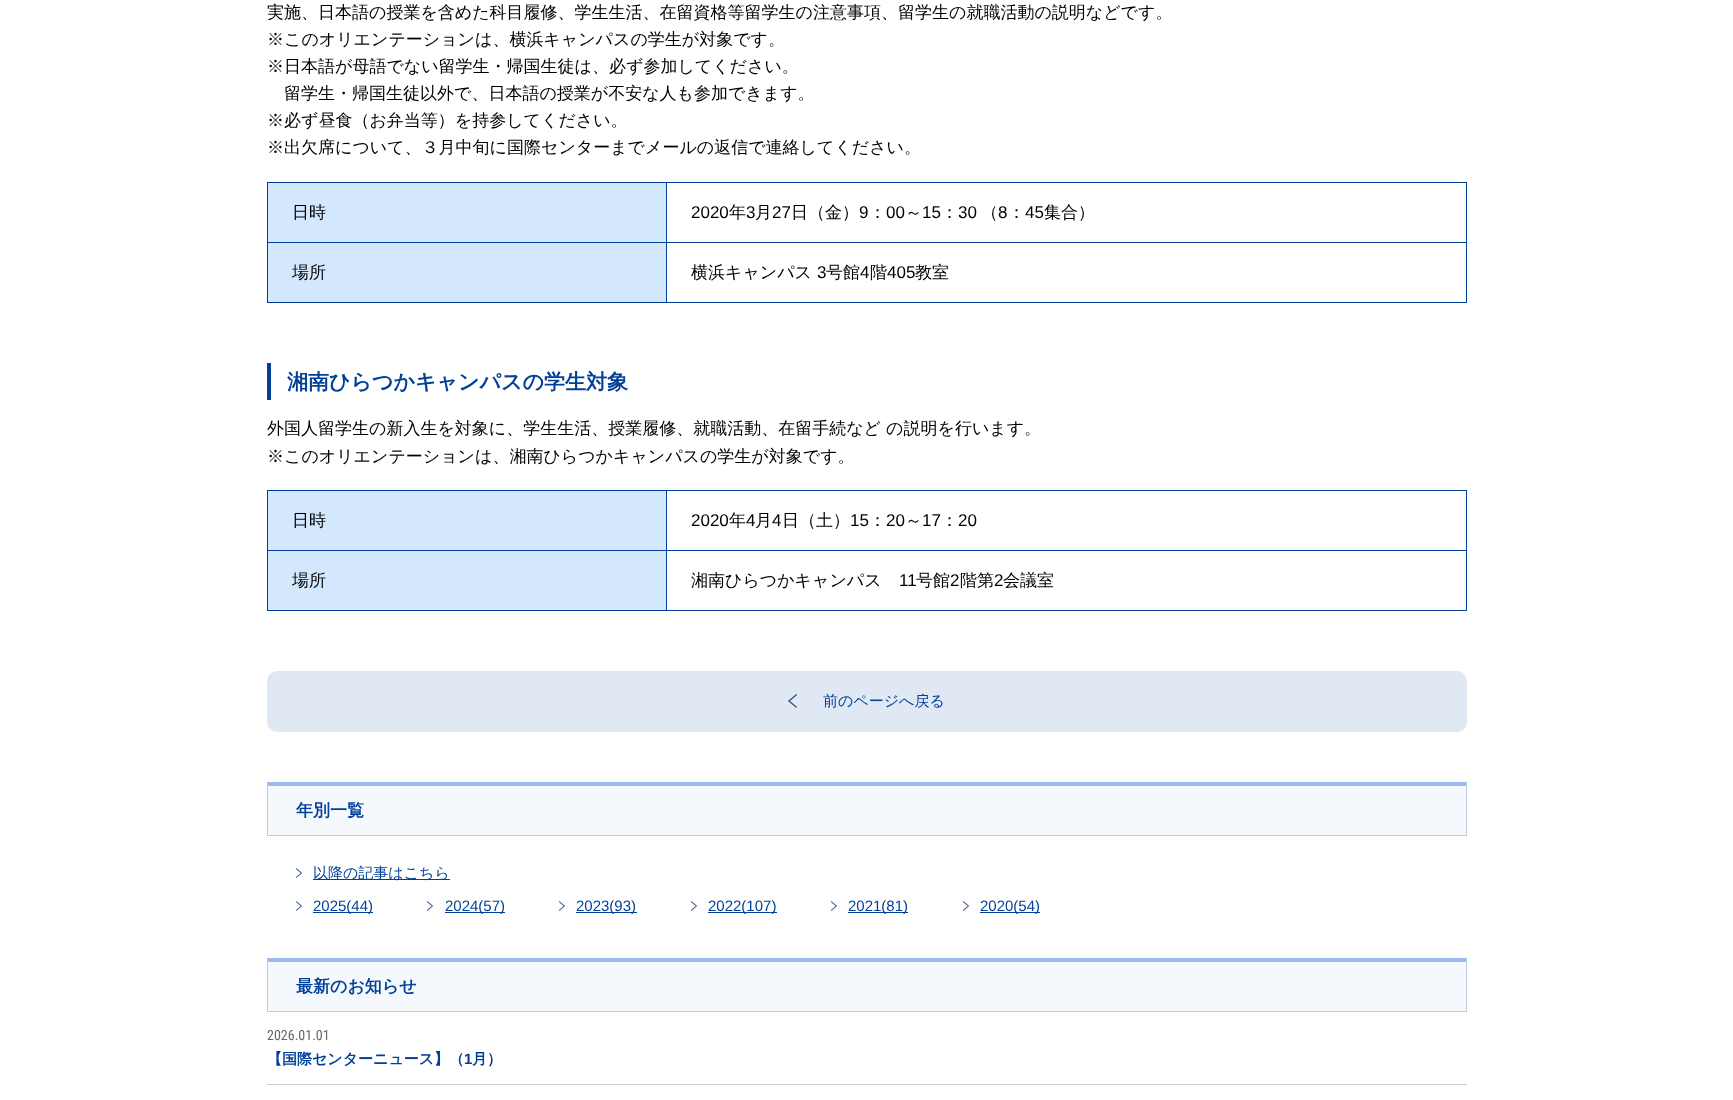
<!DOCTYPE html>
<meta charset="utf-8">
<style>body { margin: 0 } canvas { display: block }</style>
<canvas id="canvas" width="1733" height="1100"></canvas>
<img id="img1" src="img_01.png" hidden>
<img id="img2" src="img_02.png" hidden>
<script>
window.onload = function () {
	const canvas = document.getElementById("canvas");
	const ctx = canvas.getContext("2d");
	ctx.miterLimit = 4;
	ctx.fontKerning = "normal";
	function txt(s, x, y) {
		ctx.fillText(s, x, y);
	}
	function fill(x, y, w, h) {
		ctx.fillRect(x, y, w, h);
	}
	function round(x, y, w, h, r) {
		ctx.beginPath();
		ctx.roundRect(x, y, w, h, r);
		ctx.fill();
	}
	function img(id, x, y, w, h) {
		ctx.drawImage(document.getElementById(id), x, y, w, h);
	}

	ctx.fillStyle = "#FFFFFF";
	fill(0, 0, 1733, 1100);
	ctx.fillStyle = "#D3E8FC";
	fill(268, 183, 398, 59);
	ctx.fillStyle = "#014099";
	fill(666, 182, 801, 1);
	fill(666, 242, 801, 1);
	fill(1466, 242, 1, 61);
	fill(666, 302, 801, 1);
	fill(666, 242, 1, 61);
	fill(267, 242, 400, 1);
	fill(666, 182, 1, 61);
	fill(267, 182, 400, 1);
	fill(267, 302, 400, 1);
	fill(267, 242, 1, 61);
	fill(267, 182, 1, 61);
	fill(1466, 182, 1, 61);
	ctx.fillStyle = "#D3E8FC";
	fill(268, 243, 398, 59);
	ctx.fillStyle = "#014099";
	fill(267, 363, 4, 37);
	ctx.fillStyle = "#D3E8FC";
	fill(268, 491, 398, 59);
	ctx.fillStyle = "#014099";
	fill(666, 490, 801, 1);
	fill(666, 550, 801, 1);
	fill(1466, 550, 1, 61);
	fill(666, 610, 801, 1);
	fill(666, 550, 1, 61);
	fill(267, 550, 400, 1);
	fill(666, 490, 1, 61);
	fill(267, 490, 400, 1);
	fill(267, 610, 400, 1);
	fill(267, 550, 1, 61);
	fill(267, 490, 1, 61);
	fill(1466, 490, 1, 61);
	ctx.fillStyle = "#D3E8FC";
	fill(268, 551, 398, 59);
	ctx.fillStyle = "#E0E8F3";
	round(267, 671, 1200, 61, 10);
	img("img1", 788, 694, 9, 14);
	ctx.fillStyle = "#F5F9FD";
	fill(268, 786, 1198, 49);
	ctx.fillStyle = "#98BBEC";
	ctx.beginPath();
	ctx.moveTo(267, 782);
	ctx.lineTo(1467, 782);
	ctx.lineTo(1466, 786);
	ctx.lineTo(268, 786);
	ctx.closePath();
	ctx.fill();
	ctx.fillStyle = "#B8CCE1";
	ctx.beginPath();
	ctx.moveTo(1467, 782);
	ctx.lineTo(1467, 836);
	ctx.lineTo(1466, 835);
	ctx.lineTo(1466, 786);
	ctx.closePath();
	ctx.fill();
	fill(267, 835, 1200, 1);
	ctx.beginPath();
	ctx.moveTo(267, 836);
	ctx.lineTo(267, 782);
	ctx.lineTo(268, 786);
	ctx.lineTo(268, 835);
	ctx.closePath();
	ctx.fill();
	img("img2", 295, 868, 7, 10);
	ctx.fillStyle = "#014099";
	fill(313, 879, 137, 1);
	img("img2", 295, 901, 7, 10);
	fill(313, 912, 60, 1);
	img("img2", 426, 901, 7, 10);
	fill(445, 912, 60, 1);
	img("img2", 558, 901, 7, 10);
	fill(576, 912, 61, 1);
	img("img2", 690, 901, 7, 10);
	fill(708, 912, 69, 1);
	img("img2", 830, 901, 7, 10);
	fill(848, 912, 60, 1);
	img("img2", 962, 901, 7, 10);
	fill(980, 912, 60, 1);
	ctx.fillStyle = "#F5F9FD";
	fill(268, 962, 1198, 49);
	ctx.fillStyle = "#98BBEC";
	ctx.beginPath();
	ctx.moveTo(267, 958);
	ctx.lineTo(1467, 958);
	ctx.lineTo(1466, 962);
	ctx.lineTo(268, 962);
	ctx.closePath();
	ctx.fill();
	ctx.fillStyle = "#B8CCE1";
	ctx.beginPath();
	ctx.moveTo(1467, 958);
	ctx.lineTo(1467, 1012);
	ctx.lineTo(1466, 1011);
	ctx.lineTo(1466, 962);
	ctx.closePath();
	ctx.fill();
	fill(267, 1011, 1200, 1);
	ctx.beginPath();
	ctx.moveTo(267, 1012);
	ctx.lineTo(267, 958);
	ctx.lineTo(268, 962);
	ctx.lineTo(268, 1011);
	ctx.closePath();
	ctx.fill();
	ctx.fillStyle = "#CCCCCC";
	fill(267, 1084, 1200, 1);
	ctx.font = "500 17px WenQuanYi Zen Hei";
	ctx.fillStyle = "#000000";
	txt("実施、日本語の授業を含めた科目履修、学生生活、在留資格等留学生の注意事項、留学生の就職活動の説明などです。", 267, 18);
	txt("※このオリエンテーションは、横浜キャンパスの学生が対象です。", 267, 45);
	txt("※日本語が母語でない留学生・帰国生徒は、必ず参加してください。", 267, 72);
	txt("留学生・帰国生徒以外で、日本語の授業が不安な人も参加できます。", 284, 99);
	txt("※必ず昼食（お弁当等）を持参してください。", 267, 126);
	txt("※出欠席について、３月中旬に国際センターまでメールの返信で連絡してください。", 267, 153);
	txt("日時", 292, 218);
	ctx.font = "17px Liberation Sans";
	txt("2020", 691, 218);
	ctx.font = "500 17px WenQuanYi Zen Hei";
	txt("年", 729, 218);
	ctx.font = "17px Liberation Sans";
	txt("3", 746, 218);
	ctx.font = "500 17px WenQuanYi Zen Hei";
	txt("月", 755, 218);
	ctx.font = "17px Liberation Sans";
	txt("27", 772, 218);
	ctx.font = "500 17px WenQuanYi Zen Hei";
	txt("日（金）", 791, 218);
	ctx.font = "17px Liberation Sans";
	txt("9", 859, 218);
	ctx.font = "500 17px WenQuanYi Zen Hei";
	txt("：", 869, 218);
	ctx.font = "17px Liberation Sans";
	txt("00", 886, 218);
	ctx.font = "500 17px WenQuanYi Zen Hei";
	txt("～", 905, 218);
	ctx.font = "17px Liberation Sans";
	txt("15", 922, 218);
	ctx.font = "500 17px WenQuanYi Zen Hei";
	txt("：", 941, 218);
	ctx.font = "17px Liberation Sans";
	txt("30", 958, 218);
	ctx.font = "500 17px WenQuanYi Zen Hei";
	txt("（", 981, 218);
	ctx.font = "17px Liberation Sans";
	txt("8", 998, 218);
	ctx.font = "500 17px WenQuanYi Zen Hei";
	txt("：", 1008, 218);
	ctx.font = "17px Liberation Sans";
	txt("45", 1025, 218);
	ctx.font = "500 17px WenQuanYi Zen Hei";
	txt("集合）", 1044, 218);
	txt("場所", 292, 278);
	txt("横浜キャンパス", 691, 278);
	ctx.font = "17px Liberation Sans";
	txt("3", 817, 278);
	ctx.font = "500 17px WenQuanYi Zen Hei";
	txt("号館", 826, 278);
	ctx.font = "17px Liberation Sans";
	txt("4", 860, 278);
	ctx.font = "500 17px WenQuanYi Zen Hei";
	txt("階", 870, 278);
	ctx.font = "17px Liberation Sans";
	txt("405", 887, 278);
	ctx.font = "500 17px WenQuanYi Zen Hei";
	txt("教室", 915, 278);
	ctx.font = "bold 21px WenQuanYi Zen Hei";
	ctx.fillStyle = "#014099";
	txt("湘南ひらつかキャンパスの学生対象", 287, 389);
	ctx.font = "500 17px WenQuanYi Zen Hei";
	ctx.fillStyle = "#000000";
	txt("外国人留学生の新入生を対象に、学生生活、授業履修、就職活動、在留手続など の説明を行います。", 267, 434);
	txt("※このオリエンテーションは、湘南ひらつかキャンパスの学生が対象です。", 267, 462);
	txt("日時", 292, 526);
	ctx.font = "17px Liberation Sans";
	txt("2020", 691, 526);
	ctx.font = "500 17px WenQuanYi Zen Hei";
	txt("年", 729, 526);
	ctx.font = "17px Liberation Sans";
	txt("4", 746, 526);
	ctx.font = "500 17px WenQuanYi Zen Hei";
	txt("月", 755, 526);
	ctx.font = "17px Liberation Sans";
	txt("4", 772, 526);
	ctx.font = "500 17px WenQuanYi Zen Hei";
	txt("日（土）", 782, 526);
	ctx.font = "17px Liberation Sans";
	txt("15", 850, 526);
	ctx.font = "500 17px WenQuanYi Zen Hei";
	txt("：", 869, 526);
	ctx.font = "17px Liberation Sans";
	txt("20", 886, 526);
	ctx.font = "500 17px WenQuanYi Zen Hei";
	txt("～", 905, 526);
	ctx.font = "17px Liberation Sans";
	txt("17", 922, 526);
	ctx.font = "500 17px WenQuanYi Zen Hei";
	txt("：", 941, 526);
	ctx.font = "17px Liberation Sans";
	txt("20", 958, 526);
	ctx.font = "500 17px WenQuanYi Zen Hei";
	txt("場所", 292, 586);
	txt("湘南ひらつかキャンパス", 691, 586);
	ctx.font = "17px Liberation Sans";
	txt("11", 899, 586);
	ctx.font = "500 17px WenQuanYi Zen Hei";
	txt("号館", 916, 586);
	ctx.font = "17px Liberation Sans";
	txt("2", 950, 586);
	ctx.font = "500 17px WenQuanYi Zen Hei";
	txt("階第", 960, 586);
	ctx.font = "17px Liberation Sans";
	txt("2", 994, 586);
	ctx.font = "500 17px WenQuanYi Zen Hei";
	txt("会議室", 1003, 586);
	ctx.font = "500 15px WenQuanYi Zen Hei";
	ctx.fillStyle = "#014099";
	txt("前のページへ戻る", 823, 706);
	ctx.font = "bold 17px WenQuanYi Zen Hei";
	txt("年別一覧", 296, 816);
	ctx.font = "500 15px WenQuanYi Zen Hei";
	txt("以降の記事はこちら", 313, 878);
	ctx.font = "15px Liberation Sans";
	txt("2025(44)", 313, 911);
	txt("2024(57)", 445, 911);
	txt("2023(93)", 576, 911);
	txt("2022(107)", 708, 911);
	txt("2021(81)", 848, 911);
	txt("2020(54)", 980, 911);
	ctx.font = "bold 17px WenQuanYi Zen Hei";
	txt("最新のお知らせ", 296, 992);
	ctx.font = "14px Roboto Condensed";
	ctx.fillStyle = "#666666";
	txt("2026.01.01", 267, 1040);
	ctx.font = "bold 15px WenQuanYi Zen Hei";
	ctx.fillStyle = "#014099";
	txt("【国際センターニュース】（", 267, 1064);
	ctx.font = "bold 15px Liberation Sans";
	txt("1", 464, 1064);
	ctx.font = "bold 15px WenQuanYi Zen Hei";
	txt("月）", 472, 1064);
};
</script>
